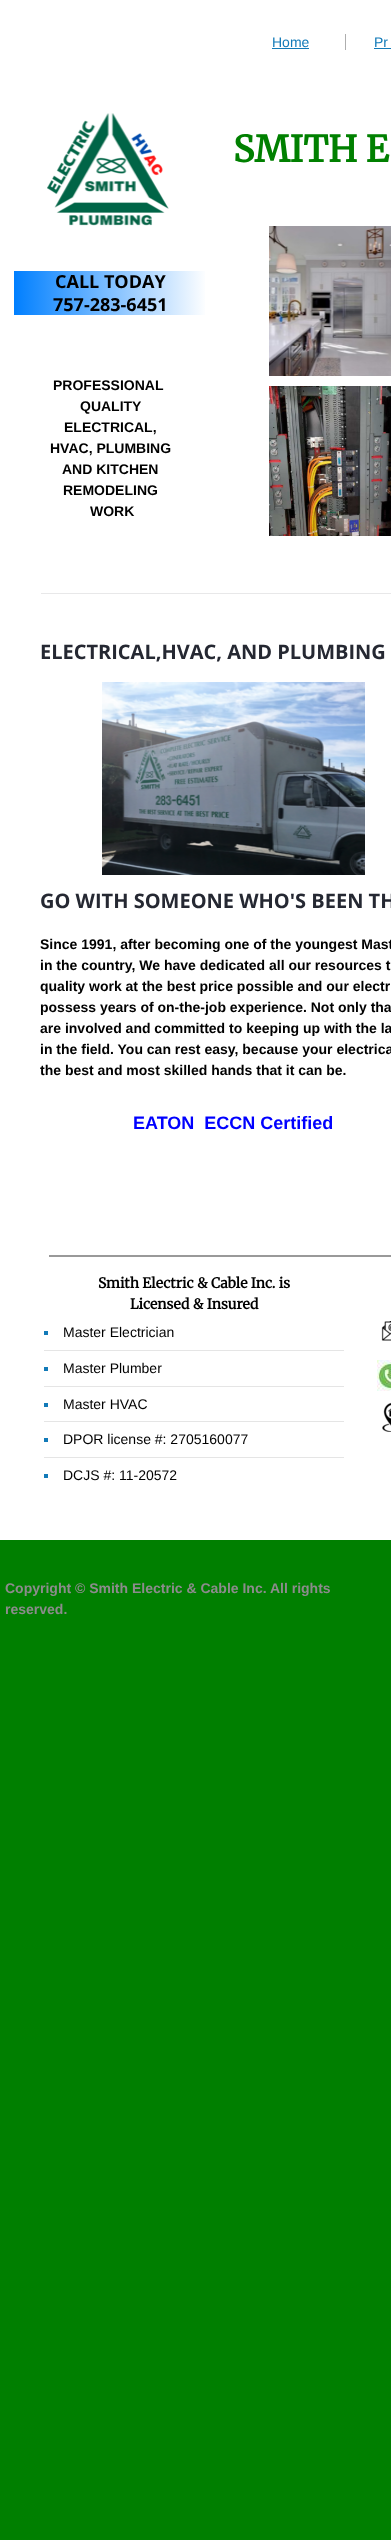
<!DOCTYPE html>
<meta charset="utf-8">
<style>body { margin: 0 } canvas { display: block }</style>
<canvas id="canvas" width="391" height="2540"></canvas>
<img id="img1" src="img_01.png" hidden>
<img id="img2" src="img_02.png" hidden>
<img id="img3" src="img_03.png" hidden>
<img id="img4" src="img_04.png" hidden>
<img id="img5" src="img_05.png" hidden>
<img id="img6" src="img_06.png" hidden>
<img id="img7" src="img_07.png" hidden>
<script>
window.onload = function () {
	const canvas = document.getElementById("canvas");
	const ctx = canvas.getContext("2d");
	ctx.miterLimit = 4;
	ctx.fontKerning = "normal";
	function txt(s, x, y) {
		ctx.fillText(s, x, y);
	}
	function fill(x, y, w, h) {
		ctx.fillRect(x, y, w, h);
	}
	function img(id, x, y, w, h) {
		ctx.drawImage(document.getElementById(id), x, y, w, h);
	}
	let gradient;

	ctx.fillStyle = "#007F00";
	fill(0, 0, 391, 2540);
	ctx.fillStyle = "#FFFFFF";
	fill(0, 0, 391, 1540);
	ctx.fillStyle = "#AEAEAE";
	fill(345, 34, 1, 16);
	ctx.fillStyle = "#127AB8";
	fill(272, 48, 37, 1);
	fill(374, 48, 17, 1);
	img("img1", 47, 113, 122, 113);
	gradient = ctx.createLinearGradient(14, 293, 207, 293);
	gradient.addColorStop(0, "#007FFF");
	gradient.addColorStop(1, "#FFFFFF");
	ctx.fillStyle = gradient;
	fill(14, 271, 191, 44);
	img("img2", 269, 226, 122, 150);
	img("img3", 269, 386, 122, 150);
	ctx.fillStyle = "#E8E8E9";
	fill(41, 593, 350, 1);
	img("img4", 102, 682, 263, 193);
	ctx.fillStyle = "#999999";
	fill(49, 1255, 342, 2);
	ctx.fillStyle = "#127AB8";
	fill(44, 1331, 4, 4);
	ctx.fillStyle = "#E5E5E5";
	fill(44, 1350, 300, 1);
	ctx.fillStyle = "#127AB8";
	fill(44, 1367, 4, 4);
	ctx.fillStyle = "#E5E5E5";
	fill(44, 1386, 300, 1);
	ctx.fillStyle = "#127AB8";
	fill(44, 1403, 4, 4);
	ctx.fillStyle = "#E5E5E5";
	fill(44, 1421, 300, 1);
	ctx.fillStyle = "#127AB8";
	fill(44, 1438, 4, 4);
	ctx.fillStyle = "#E5E5E5";
	fill(44, 1457, 300, 1);
	ctx.fillStyle = "#127AB8";
	fill(44, 1474, 4, 4);
	img("img5", 381, 1321, 10, 20);
	img("img6", 377, 1360, 14, 31);
	img("img7", 382, 1402, 9, 30);
	ctx.font = "14px Liberation Sans";
	txt("Home", 272, 47);
	txt("Pr", 374, 47);
	ctx.font = "bold 36px Merriweather";
	ctx.fillStyle = "#008000";
	txt("SMITH E", 233, 162);
	ctx.font = "bold 18px Open Sans";
	ctx.fillStyle = "#000000";
	txt("CALL TODAY", 55, 288);
	txt("757-283-6451", 53, 311);
	ctx.font = "bold 14px Liberation Sans";
	txt("PROFESSIONAL", 53, 390);
	txt("QUALITY", 80, 411);
	txt("ELECTRICAL,", 64, 432);
	txt("HVAC, PLUMBING", 50, 453);
	txt("AND KITCHEN", 62, 474);
	txt("REMODELING", 63, 495);
	txt("WORK", 90, 516);
	ctx.font = "bold 20px Open Sans";
	ctx.fillStyle = "#252832";
	txt("ELECTRICAL,HVAC, AND PLUMBING", 40, 659);
	txt("GO WITH SOMEONE WHO'S BEEN TH", 40, 908);
	ctx.font = "bold 14px Liberation Sans";
	ctx.fillStyle = "#000000";
	txt("Since 1991, after becoming one of the youngest Mast", 40, 949);
	txt("in the country, We have dedicated all our resources t", 40, 970);
	txt("quality work at the best price possible and our electr", 40, 991);
	txt("possess years of on-the-job experience. Not only tha", 40, 1012);
	txt("are involved and committed to keeping up with the la", 40, 1033);
	txt("in the field. You can rest easy, because your electrica", 40, 1054);
	txt("the best and most skilled hands that it can be.", 40, 1075);
	ctx.font = "bold 18px Liberation Sans";
	ctx.fillStyle = "#0000FF";
	txt("EATON  ECCN Certified", 133, 1129);
	ctx.font = "bold 14px Merriweather";
	ctx.fillStyle = "#000000";
	txt("Smith Electric & Cable Inc. is", 98, 1288);
	txt("Licensed & Insured", 130, 1309);
	ctx.font = "14px Liberation Sans";
	txt("Master Electrician", 63, 1337);
	txt("Master Plumber", 63, 1373);
	txt("Master HVAC", 63, 1409);
	txt("DPOR license #: 2705160077", 63, 1444);
	txt("DCJS #: 11-20572", 63, 1480);
	ctx.font = "bold 14px Liberation Sans";
	ctx.fillStyle = "#8C8C8C";
	txt("Copyright © Smith Electric & Cable Inc. All rights", 5, 1593);
	txt("reserved.", 5, 1614);
};
</script>
